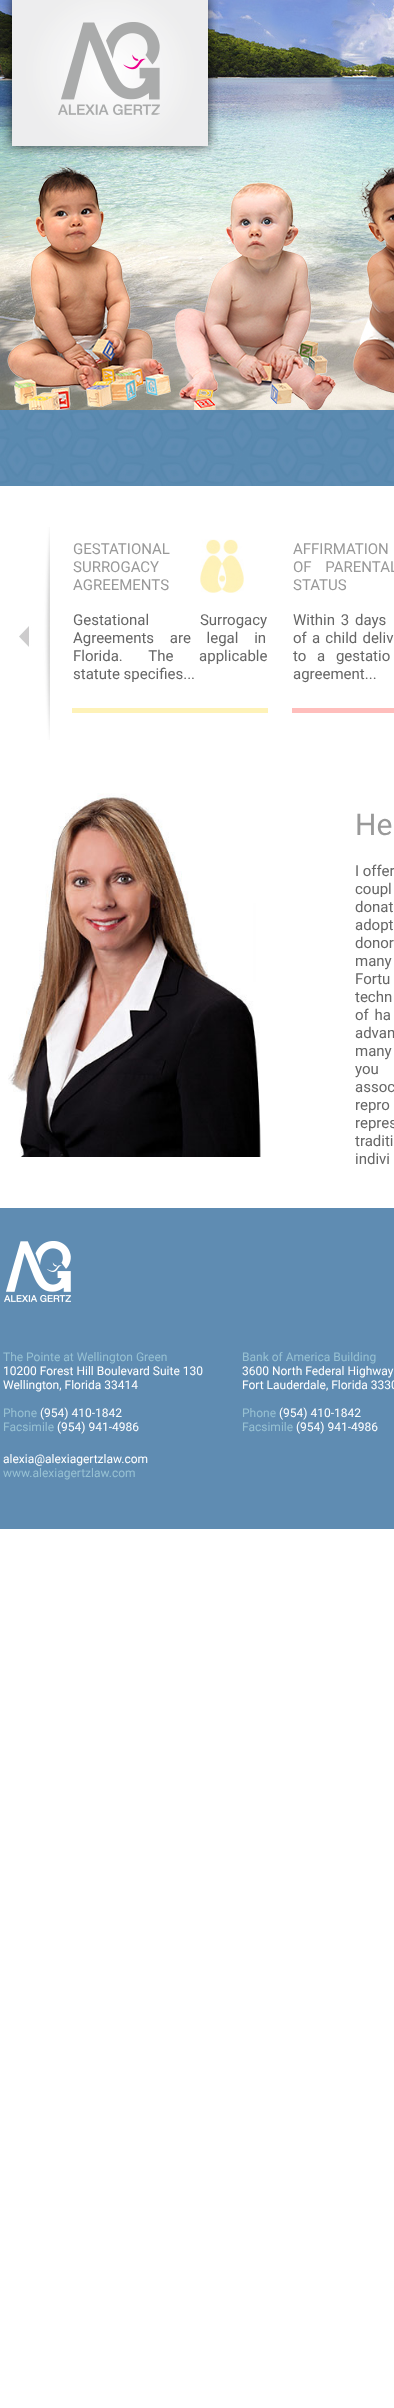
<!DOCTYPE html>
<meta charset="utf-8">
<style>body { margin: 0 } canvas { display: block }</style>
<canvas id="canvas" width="394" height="2408"></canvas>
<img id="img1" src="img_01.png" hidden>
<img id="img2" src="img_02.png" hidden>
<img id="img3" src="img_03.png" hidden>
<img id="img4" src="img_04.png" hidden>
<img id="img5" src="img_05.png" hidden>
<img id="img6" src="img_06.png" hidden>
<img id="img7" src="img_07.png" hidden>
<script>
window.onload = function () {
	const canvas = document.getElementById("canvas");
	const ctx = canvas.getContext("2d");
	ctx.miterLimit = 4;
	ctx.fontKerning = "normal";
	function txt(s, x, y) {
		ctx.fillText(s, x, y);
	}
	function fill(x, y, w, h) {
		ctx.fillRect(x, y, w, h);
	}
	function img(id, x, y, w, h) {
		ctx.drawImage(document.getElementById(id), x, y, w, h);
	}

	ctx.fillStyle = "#FFFFFF";
	fill(0, 0, 394, 2408);
	img("img1", 0, 0, 394, 410);
	img("img2", 2, 0, 216, 156);
	img("img3", 0, 410, 394, 76);
	img("img4", 19, 527, 31, 213);
	img("img5", 200, 539, 44, 54);
	ctx.fillStyle = "#FEF2B8";
	fill(72, 708, 196, 5);
	ctx.fillStyle = "#FFBEBC";
	fill(292, 708, 102, 5);
	img("img6", 8, 793, 253, 364);
	ctx.fillStyle = "#5F8CB2";
	fill(0, 1208, 394, 321);
	img("img7", 4, 1241, 67, 61);
	ctx.font = "15px Roboto";
	ctx.fillStyle = "#999999";
	txt("GESTATIONAL", 73, 554);
	txt("SURROGACY", 73, 572);
	txt("AGREEMENTS", 73, 590);
	ctx.wordSpacing = "47px";
	ctx.fillStyle = "#666666";
	txt("Gestational Surrogacy", 73, 625);
	ctx.wordSpacing = "12px";
	txt("Agreements are legal in", 73, 643);
	ctx.wordSpacing = "22px";
	txt("Florida. The applicable", 73, 661);
	ctx.wordSpacing = "0px";
	txt("statute specifies...", 73, 679);
	ctx.fillStyle = "#999999";
	txt("AFFIRMATION", 293, 554);
	ctx.wordSpacing = "10px";
	txt("OF PARENTAL", 293, 572);
	ctx.wordSpacing = "0px";
	txt("STATUS", 293, 590);
	ctx.wordSpacing = "2px";
	ctx.fillStyle = "#666666";
	txt("Within 3 days", 293, 625);
	ctx.wordSpacing = "1.5px";
	txt("of a child deliv", 293, 643);
	ctx.wordSpacing = "7px";
	txt("to a gestatio", 293, 661);
	ctx.wordSpacing = "0px";
	txt("agreement...", 293, 679);
	ctx.font = "30px Roboto";
	ctx.fillStyle = "#999999";
	txt("He", 355, 835);
	ctx.font = "15px Roboto";
	ctx.fillStyle = "#666666";
	txt("I offer", 355, 876);
	ctx.wordSpacing = "6px";
	txt("coupl", 355, 894);
	ctx.wordSpacing = "2px";
	txt("donat", 355, 912);
	ctx.wordSpacing = "7px";
	txt("adopt", 355, 930);
	ctx.wordSpacing = "2px";
	txt("donor", 355, 948);
	ctx.wordSpacing = "7px";
	txt("many", 355, 966);
	ctx.wordSpacing = "22px";
	txt("Fortu", 355, 984);
	ctx.wordSpacing = "1px";
	txt("techn", 355, 1002);
	ctx.wordSpacing = "2px";
	txt("of ha", 355, 1020);
	ctx.wordSpacing = "0px";
	txt("advan", 355, 1038);
	ctx.wordSpacing = "2px";
	txt("many", 355, 1056);
	ctx.wordSpacing = "12px";
	txt("you", 355, 1074);
	ctx.wordSpacing = "1px";
	txt("assoc", 355, 1092);
	ctx.wordSpacing = "8px";
	txt("repro", 355, 1110);
	ctx.wordSpacing = "3px";
	txt("repres", 355, 1128);
	ctx.wordSpacing = "1px";
	txt("traditi", 355, 1146);
	ctx.wordSpacing = "0px";
	txt("indivi", 355, 1164);
	ctx.font = "12px Roboto";
	ctx.fillStyle = "#97C1D3";
	txt("The Pointe at Wellington Green", 3, 1361);
	ctx.fillStyle = "#FFFFFF";
	txt("10200 Forest Hill Boulevard Suite 130", 3, 1375);
	txt("Wellington, Florida 33414", 3, 1389);
	ctx.fillStyle = "#97C1D3";
	txt("Phone", 3, 1417);
	ctx.fillStyle = "#FFFFFF";
	txt("(954) 410-1842", 40, 1417);
	ctx.fillStyle = "#97C1D3";
	txt("Facsimile", 3, 1431);
	ctx.fillStyle = "#FFFFFF";
	txt("(954) 941-4986", 57, 1431);
	ctx.fillStyle = "#97C1D3";
	txt("Bank of America Building", 242, 1361);
	ctx.fillStyle = "#FFFFFF";
	txt("3600 North Federal Highway", 242, 1375);
	txt("Fort Lauderdale, Florida 3330", 242, 1389);
	ctx.fillStyle = "#97C1D3";
	txt("Phone", 242, 1417);
	ctx.fillStyle = "#FFFFFF";
	txt("(954) 410-1842", 279, 1417);
	ctx.fillStyle = "#97C1D3";
	txt("Facsimile", 242, 1431);
	ctx.fillStyle = "#FFFFFF";
	txt("(954) 941-4986", 296, 1431);
	txt("alexia@alexiagertzlaw.com", 3, 1463);
	ctx.fillStyle = "#97C1D3";
	txt("www.alexiagertzlaw.com", 3, 1477);
};
</script>
